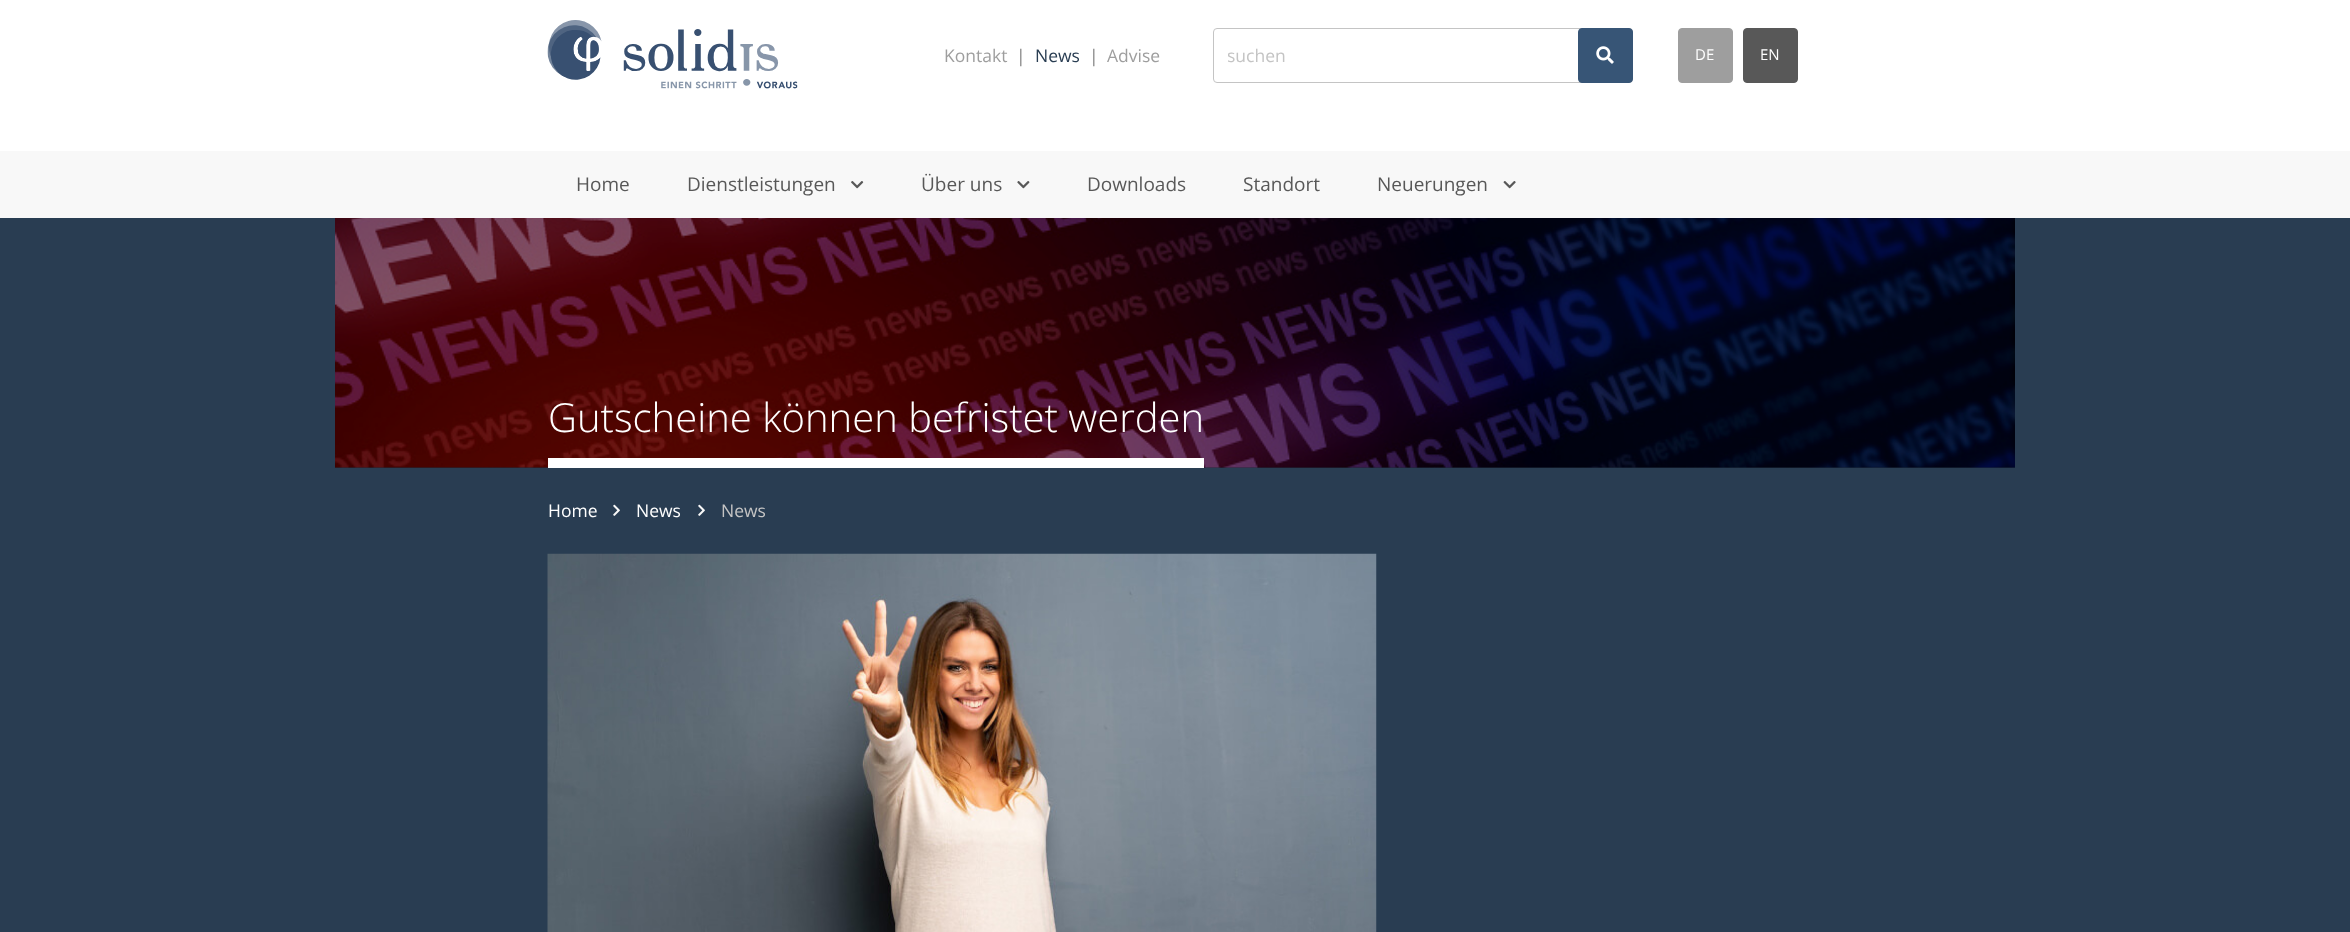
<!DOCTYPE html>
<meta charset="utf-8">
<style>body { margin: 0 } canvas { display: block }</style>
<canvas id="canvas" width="2350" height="932"></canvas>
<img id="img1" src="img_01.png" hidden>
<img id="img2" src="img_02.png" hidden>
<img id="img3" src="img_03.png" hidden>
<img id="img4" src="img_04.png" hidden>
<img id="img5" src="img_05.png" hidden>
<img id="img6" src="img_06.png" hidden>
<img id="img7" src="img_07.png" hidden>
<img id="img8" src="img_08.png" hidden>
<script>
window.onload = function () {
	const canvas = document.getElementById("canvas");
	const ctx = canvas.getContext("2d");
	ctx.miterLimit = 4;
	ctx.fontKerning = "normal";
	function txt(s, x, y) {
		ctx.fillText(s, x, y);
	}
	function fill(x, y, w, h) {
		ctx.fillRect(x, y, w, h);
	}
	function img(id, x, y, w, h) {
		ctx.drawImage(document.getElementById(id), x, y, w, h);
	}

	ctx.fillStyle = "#FFFFFF";
	fill(0, 0, 2350, 932);
	img("img1", 547, 20, 251, 69);
	ctx.beginPath();
	ctx.roundRect(1213.5, 28.5, 419, 54, 3.5);
	ctx.strokeStyle = "#C4C4C4";
	ctx.stroke();
	ctx.fillStyle = "#375576";
	ctx.beginPath();
	ctx.roundRect(1578.5, 28.5, 54, 54, 3.5);
	ctx.fill();
	ctx.strokeStyle = "#375576";
	ctx.stroke();
	img("img2", 1596, 46, 18, 18);
	ctx.fillStyle = "#9E9E9E";
	ctx.beginPath();
	ctx.roundRect(1678.5, 28.5, 54, 54, 3.5);
	ctx.fill();
	ctx.strokeStyle = "#9E9E9E";
	ctx.stroke();
	ctx.fillStyle = "#585858";
	ctx.beginPath();
	ctx.roundRect(1743.5, 28.5, 54, 54, 3.5);
	ctx.fill();
	ctx.strokeStyle = "#585858";
	ctx.stroke();
	ctx.fillStyle = "#F8F8F8";
	fill(0, 151, 2350, 67);
	img("img3", 851, 181, 13, 8);
	img("img4", 1017, 181, 13, 8);
	img("img5", 1503, 181, 13, 8);
	ctx.fillStyle = "#293D52";
	fill(0, 218, 2350, 714);
	ctx.fillStyle = "#1C2B3B";
	fill(335, 467, 1680, 1);
	img("img6", 335, 218, 1680, 250);
	ctx.fillStyle = "#FFFFFF";
	fill(548, 458, 656, 10);
	img("img7", 613, 504, 7, 12);
	img("img7", 698, 504, 7, 12);
	img("img8", 547, 553, 830, 379);
	ctx.font = "17.5px Open Sans";
	ctx.fillStyle = "#9E9E9E";
	txt("Kontakt", 944, 62);
	ctx.fillStyle = "#808080";
	txt("|", 1016, 62);
	ctx.fillStyle = "#293D52";
	txt("News", 1035, 62);
	ctx.fillStyle = "#808080";
	txt("|", 1089, 62);
	ctx.fillStyle = "#9E9E9E";
	txt("Advise", 1107, 62);
	ctx.save();
	ctx.beginPath();
	ctx.rect(1228, 44, 381, 24);
	ctx.clip();
	ctx.fillStyle = "#C4C4C4";
	txt("suchen", 1227, 62);
	ctx.restore();
	ctx.font = "15px Open Sans";
	ctx.fillStyle = "#FFFFFF";
	txt("DE", 1695, 60);
	txt("EN", 1760, 60);
	ctx.font = "19px Open Sans";
	ctx.fillStyle = "#585858";
	txt("Home", 576, 191);
	txt("Dienstleistungen", 687, 191);
	txt("Über uns", 921, 191);
	txt("Downloads", 1087, 191);
	txt("Standort", 1243, 191);
	txt("Neuerungen", 1377, 191);
	ctx.font = "300 40px Open Sans";
	ctx.fillStyle = "#FFFFFF";
	txt("Gutscheine können befristet werden", 548, 432);
	ctx.font = "17.5px Open Sans";
	txt("Home", 548, 517);
	txt("News", 636, 517);
	ctx.fillStyle = "#C4C4C4";
	txt("News", 721, 517);
};
</script>
